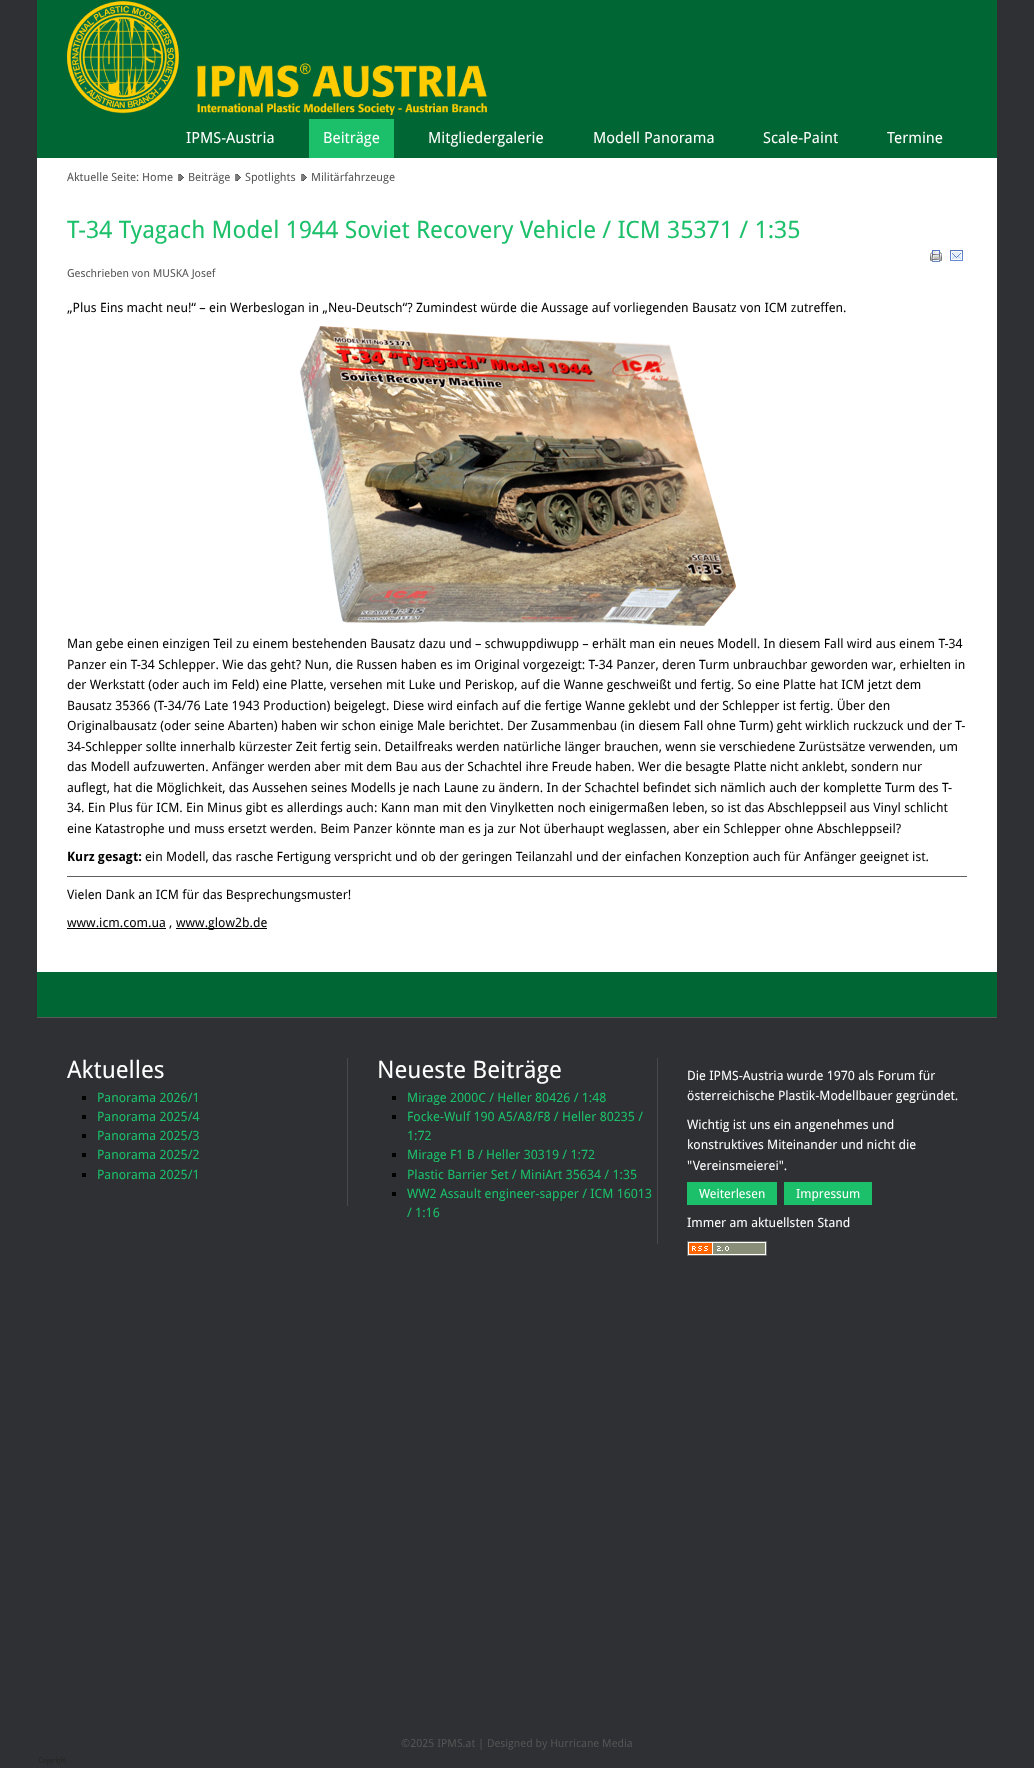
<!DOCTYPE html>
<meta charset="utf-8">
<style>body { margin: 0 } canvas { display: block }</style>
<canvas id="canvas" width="1034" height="1768"></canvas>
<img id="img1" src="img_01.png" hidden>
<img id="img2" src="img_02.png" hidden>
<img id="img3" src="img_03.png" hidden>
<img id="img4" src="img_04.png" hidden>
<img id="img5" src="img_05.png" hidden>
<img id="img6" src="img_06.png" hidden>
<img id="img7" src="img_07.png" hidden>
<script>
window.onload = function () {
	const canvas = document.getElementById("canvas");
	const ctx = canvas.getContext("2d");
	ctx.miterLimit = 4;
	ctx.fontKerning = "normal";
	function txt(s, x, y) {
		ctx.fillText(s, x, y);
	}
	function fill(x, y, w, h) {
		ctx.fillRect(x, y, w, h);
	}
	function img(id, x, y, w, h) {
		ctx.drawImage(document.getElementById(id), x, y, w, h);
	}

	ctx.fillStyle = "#2E3034";
	fill(0, 0, 1034, 1768);
	ctx.fillStyle = "#006633";
	fill(37, 0, 960, 158);
	img("img1", 67, 1, 420, 114);
	ctx.fillStyle = "#1CC06A";
	fill(309, 119, 85, 39);
	ctx.fillStyle = "#FFFFFF";
	fill(37, 158, 960, 814);
	img("img2", 178, 174, 6, 7);
	img("img2", 235, 174, 6, 7);
	img("img2", 301, 174, 6, 7);
	img("img3", 930, 250, 12, 12);
	img("img4", 950, 250, 13, 11);
	img("img5", 299, 326, 437, 300);
	ctx.fillStyle = "#5E6062";
	fill(67, 876, 900, 1);
	ctx.fillStyle = "#000000";
	fill(67, 928, 99, 1);
	fill(176, 928, 91, 1);
	ctx.fillStyle = "#006633";
	fill(37, 972, 960, 45);
	ctx.fillStyle = "#57595C";
	fill(37, 1017, 960, 1);
	ctx.fillStyle = "#494949";
	fill(347, 1058, 1, 148);
	ctx.fillStyle = "#000000";
	fill(82, 1096, 4, 4);
	fill(82, 1115, 4, 4);
	fill(82, 1134, 4, 4);
	fill(82, 1153, 4, 4);
	fill(82, 1173, 4, 4);
	ctx.fillStyle = "#494949";
	fill(657, 1058, 1, 186);
	ctx.fillStyle = "#000000";
	fill(392, 1096, 4, 4);
	fill(392, 1115, 4, 4);
	fill(392, 1153, 4, 4);
	fill(392, 1173, 4, 4);
	fill(392, 1192, 4, 4);
	ctx.fillStyle = "#1CC06A";
	fill(687, 1182, 90, 23);
	fill(784, 1182, 88, 23);
	img("img6", 687, 1241, 80, 15);
	img("img7", 39, 1757, 27, 8);
	ctx.font = "15.25px Droid Sans";
	ctx.fillStyle = "#FFFFFF";
	txt("IPMS-Austria", 186, 143);
	txt("Beiträge", 323, 143);
	txt("Mitgliedergalerie", 428, 143);
	txt("Modell Panorama", 593, 143);
	txt("Scale-Paint", 763, 143);
	txt("Termine", 887, 143);
	ctx.font = "11.4px Droid Sans";
	ctx.fillStyle = "#555555";
	txt("Aktuelle Seite: Home", 67, 181);
	txt("Beiträge", 188, 181);
	txt("Spotlights", 245, 181);
	txt("Militärfahrzeuge", 311, 181);
	ctx.font = "24px Droid Sans";
	ctx.fillStyle = "#1CC06A";
	txt("T-34 Tyagach Model 1944 Soviet Recovery Vehicle / ICM 35371 / 1:35", 67, 238);
	ctx.font = "11px Droid Sans";
	ctx.fillStyle = "#555555";
	txt("Geschrieben von MUSKA Josef", 67, 277);
	ctx.font = "12.8px Droid Sans";
	ctx.fillStyle = "#000000";
	txt("„Plus Eins macht neu!“ – ein Werbeslogan in „Neu-Deutsch“? Zumindest würde die Aussage auf vorliegenden Bausatz von ICM zutreffen.", 67, 312);
	txt("Man gebe einen einzigen Teil zu einem bestehenden Bausatz dazu und – schwuppdiwupp – erhält man ein neues Modell. In diesem Fall wird aus einem T-34", 67, 648);
	txt("Panzer ein T-34 Schlepper. Wie das geht? Nun, die Russen haben es im Original vorgezeigt: T-34 Panzer, deren Turm unbrauchbar geworden war, erhielten in", 67, 669);
	txt("der Werkstatt (oder auch im Feld) eine Platte, versehen mit Luke und Periskop, auf die Wanne geschweißt und fertig. So eine Platte hat ICM jetzt dem", 67, 689);
	txt("Bausatz 35366 (T-34/76 Late 1943 Production) beigelegt. Diese wird einfach auf die fertige Wanne geklebt und der Schlepper ist fertig. Über den", 67, 710);
	txt("Originalbausatz (oder seine Abarten) haben wir schon einige Male berichtet. Der Zusammenbau (in diesem Fall ohne Turm) geht wirklich ruckzuck und der T-", 67, 730);
	txt("34-Schlepper sollte innerhalb kürzester Zeit fertig sein. Detailfreaks werden natürliche länger brauchen, wenn sie verschiedene Zurüstsätze verwenden, um", 67, 751);
	txt("das Modell aufzuwerten. Anfänger werden aber mit dem Bau aus der Schachtel ihre Freude haben. Wer die besagte Platte nicht anklebt, sondern nur", 67, 771);
	txt("auflegt, hat die Möglichkeit, das Aussehen seines Modells je nach Laune zu ändern. In der Schachtel befindet sich nämlich auch der komplette Turm des T-", 67, 792);
	txt("34. Ein Plus für ICM. Ein Minus gibt es allerdings auch: Kann man mit den Vinylketten noch einigermaßen leben, so ist das Abschleppseil aus Vinyl schlicht", 67, 812);
	txt("eine Katastrophe und muss ersetzt werden. Beim Panzer könnte man es ja zur Not überhaupt weglassen, aber ein Schlepper ohne Abschleppseil?", 67, 833);
	ctx.font = "bold 12.8px Droid Sans";
	txt("Kurz gesagt:", 67, 861);
	ctx.font = "12.8px Droid Sans";
	txt("ein Modell, das rasche Fertigung verspricht und ob der geringen Teilanzahl und der einfachen Konzeption auch für Anfänger geeignet ist.", 145, 861);
	txt("Vielen Dank an ICM für das Besprechungsmuster!", 67, 899);
	txt("www.icm.com.ua ,", 67, 927);
	txt("www.glow2b.de", 176, 927);
	ctx.font = "24px Droid Sans";
	ctx.fillStyle = "#FFFFFF";
	txt("Aktuelles", 67, 1078);
	ctx.font = "12.8px Droid Sans";
	ctx.fillStyle = "#1CC06A";
	txt("Panorama 2026/1", 97, 1102);
	txt("Panorama 2025/4", 97, 1121);
	txt("Panorama 2025/3", 97, 1140);
	txt("Panorama 2025/2", 97, 1159);
	txt("Panorama 2025/1", 97, 1179);
	ctx.font = "24px Droid Sans";
	ctx.fillStyle = "#FFFFFF";
	txt("Neueste Beiträge", 377, 1078);
	ctx.font = "12.8px Droid Sans";
	ctx.fillStyle = "#1CC06A";
	txt("Mirage 2000C / Heller 80426 / 1:48", 407, 1102);
	txt("Focke-Wulf 190 A5/A8/F8 / Heller 80235 /", 407, 1121);
	txt("1:72", 407, 1140);
	txt("Mirage F1 B / Heller 30319 / 1:72", 407, 1159);
	txt("Plastic Barrier Set / MiniArt 35634 / 1:35", 407, 1179);
	txt("WW2 Assault engineer-sapper / ICM 16013", 407, 1198);
	txt("/ 1:16", 407, 1217);
	ctx.fillStyle = "#FFFFFF";
	txt("Die IPMS-Austria wurde 1970 als Forum für", 687, 1080);
	txt("österreichische Plastik-Modellbauer gegründet.", 687, 1100);
	txt("Wichtig ist uns ein angenehmes und", 687, 1129);
	txt("konstruktives Miteinander und nicht die", 687, 1149);
	txt("\"Vereinsmeierei\".", 687, 1170);
	ctx.font = "12.5px Droid Sans";
	txt("Weiterlesen", 699, 1198);
	txt("Impressum", 796, 1198);
	ctx.font = "12.8px Droid Sans";
	txt("Immer am aktuellsten Stand", 687, 1227);
	ctx.font = "11px Droid Sans";
	ctx.fillStyle = "#555555";
	txt("©2025 IPMS.at | Designed by Hurricane Media", 401, 1747);
};
</script>
